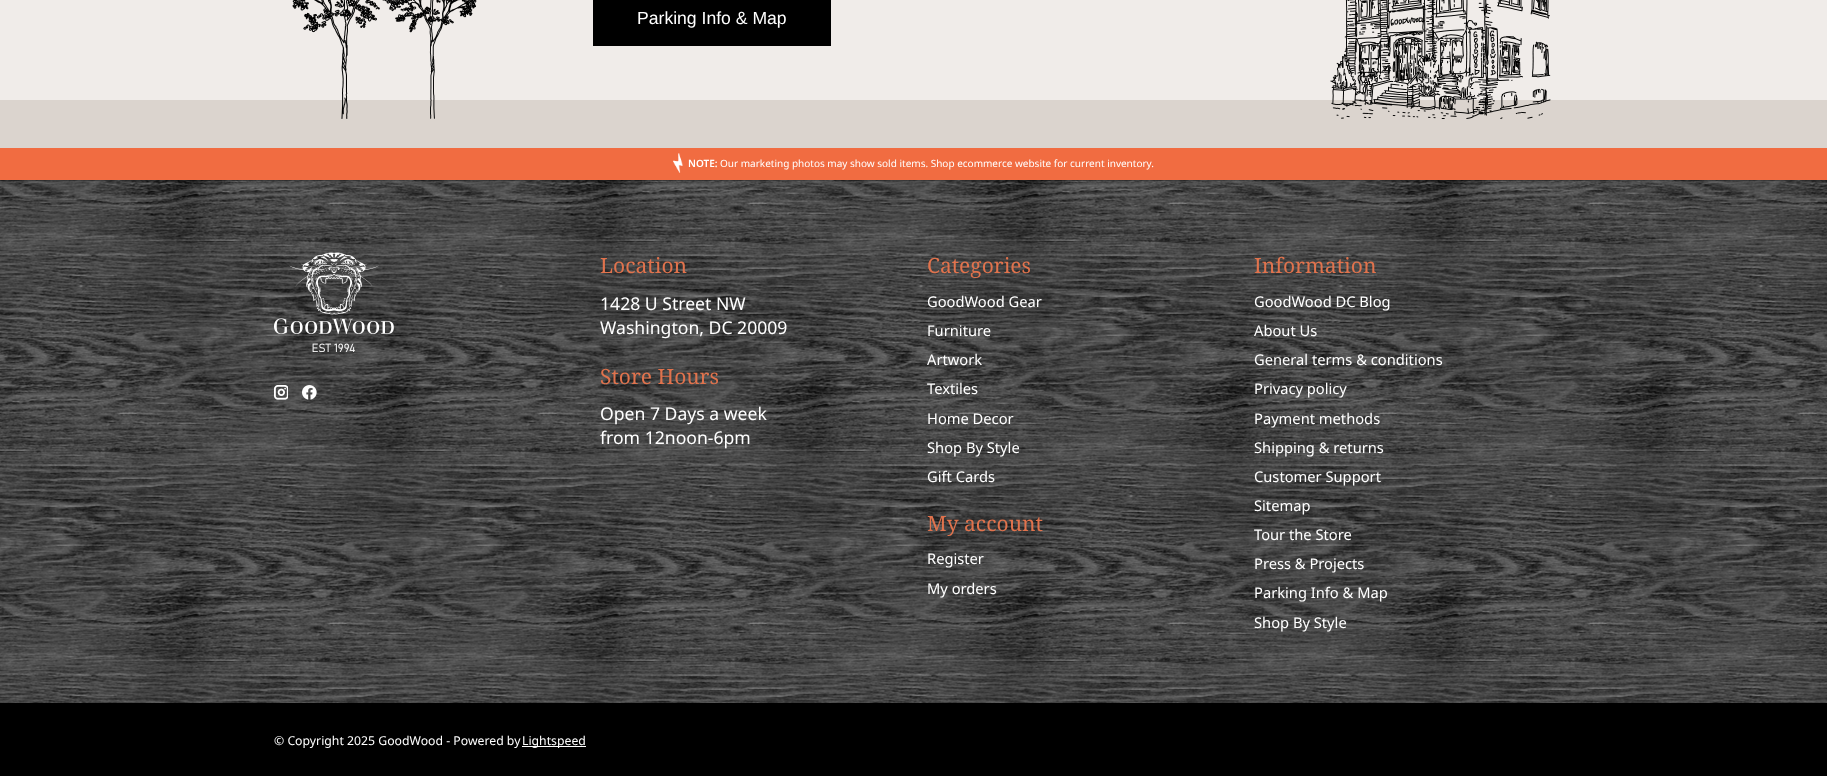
<!DOCTYPE html>
<meta charset="utf-8">
<style>body { margin: 0 } canvas { display: block }</style>
<canvas id="canvas" width="1827" height="776"></canvas>
<img id="img1" src="img_01.png" hidden>
<img id="img2" src="img_02.png" hidden>
<img id="img3" src="img_03.png" hidden>
<img id="img4" src="img_04.png" hidden>
<img id="img5" src="img_05.png" hidden>
<img id="img6" src="img_06.png" hidden>
<img id="img7" src="img_07.png" hidden>
<script>
window.onload = function () {
	const canvas = document.getElementById("canvas");
	const ctx = canvas.getContext("2d");
	ctx.miterLimit = 4;
	ctx.fontKerning = "normal";
	function txt(s, x, y) {
		ctx.fillText(s, x, y);
	}
	function fill(x, y, w, h) {
		ctx.fillRect(x, y, w, h);
	}
	function img(id, x, y, w, h) {
		ctx.drawImage(document.getElementById(id), x, y, w, h);
	}

	ctx.fillStyle = "#F0ECE9";
	fill(0, 0, 1827, 776);
	ctx.fillStyle = "#DBD4CE";
	fill(0, 100, 1827, 48);
	img("img1", 292, 0, 185, 119);
	ctx.fillStyle = "#000000";
	fill(593, 0, 238, 46);
	img("img2", 1330, 0, 221, 119);
	ctx.fillStyle = "#F16C41";
	fill(0, 148, 1827, 32);
	img("img3", 673, 153, 10, 20);
	img("img4", 0, 180, 1827, 523);
	ctx.fillStyle = "rgba(0, 0, 0, 0.2)";
	fill(0, 180, 1827, 1);
	img("img5", 274, 252, 120, 100);
	img("img6", 274, 385, 14, 15);
	img("img7", 302, 385, 15, 15);
	ctx.fillStyle = "#000000";
	fill(0, 703, 1827, 73);
	ctx.fillStyle = "#FFFFFF";
	fill(522, 746, 64, 1);
	ctx.font = "17.6px Liberation Sans";
	txt("Parking Info & Map", 637, 24);
	ctx.font = "600 10px Noto Sans";
	txt("NOTE:", 688, 167);
	ctx.font = "10px Noto Sans";
	txt("Our marketing photos may show sold items. Shop ecommerce website for current inventory.", 720, 167);
	ctx.font = "21px Noto Serif";
	ctx.fillStyle = "#E1734D";
	txt("Location", 600, 273);
	ctx.font = "17.6px Noto Sans";
	ctx.fillStyle = "#FFFFFF";
	txt("1428 U Street NW", 600, 310);
	txt("Washington, DC 20009", 600, 334);
	ctx.font = "21px Noto Serif";
	ctx.fillStyle = "#E1734D";
	txt("Store Hours", 600, 384);
	ctx.font = "17.6px Noto Sans";
	ctx.fillStyle = "#FFFFFF";
	txt("Open 7 Days a week", 600, 420);
	txt("from 12noon-6pm", 600, 444);
	ctx.font = "21px Noto Serif";
	ctx.fillStyle = "#E1734D";
	txt("Categories", 927, 273);
	ctx.font = "14.7px Noto Sans";
	ctx.fillStyle = "#FFFFFF";
	txt("GoodWood Gear", 927, 307);
	txt("Furniture", 927, 336);
	txt("Artwork", 927, 365);
	txt("Textiles", 927, 394);
	txt("Home Decor", 927, 424);
	txt("Shop By Style", 927, 453);
	txt("Gift Cards", 927, 482);
	ctx.font = "21px Noto Serif";
	ctx.fillStyle = "#E1734D";
	txt("My account", 927, 531);
	ctx.font = "14.7px Noto Sans";
	ctx.fillStyle = "#FFFFFF";
	txt("Register", 927, 564);
	txt("My orders", 927, 594);
	ctx.font = "21px Noto Serif";
	ctx.fillStyle = "#E1734D";
	txt("Information", 1254, 273);
	ctx.font = "14.7px Noto Sans";
	ctx.fillStyle = "#FFFFFF";
	txt("GoodWood DC Blog", 1254, 307);
	txt("About Us", 1254, 336);
	txt("General terms & conditions", 1254, 365);
	txt("Privacy policy", 1254, 394);
	txt("Payment methods", 1254, 424);
	txt("Shipping & returns", 1254, 453);
	txt("Customer Support", 1254, 482);
	txt("Sitemap", 1254, 511);
	txt("Tour the Store", 1254, 540);
	txt("Press & Projects", 1254, 569);
	txt("Parking Info & Map", 1254, 598);
	txt("Shop By Style", 1254, 628);
	ctx.font = "12.25px Noto Sans";
	txt("© Copyright 2025 GoodWood - Powered by", 274, 745);
	txt("Lightspeed", 522, 745);
};
</script>
